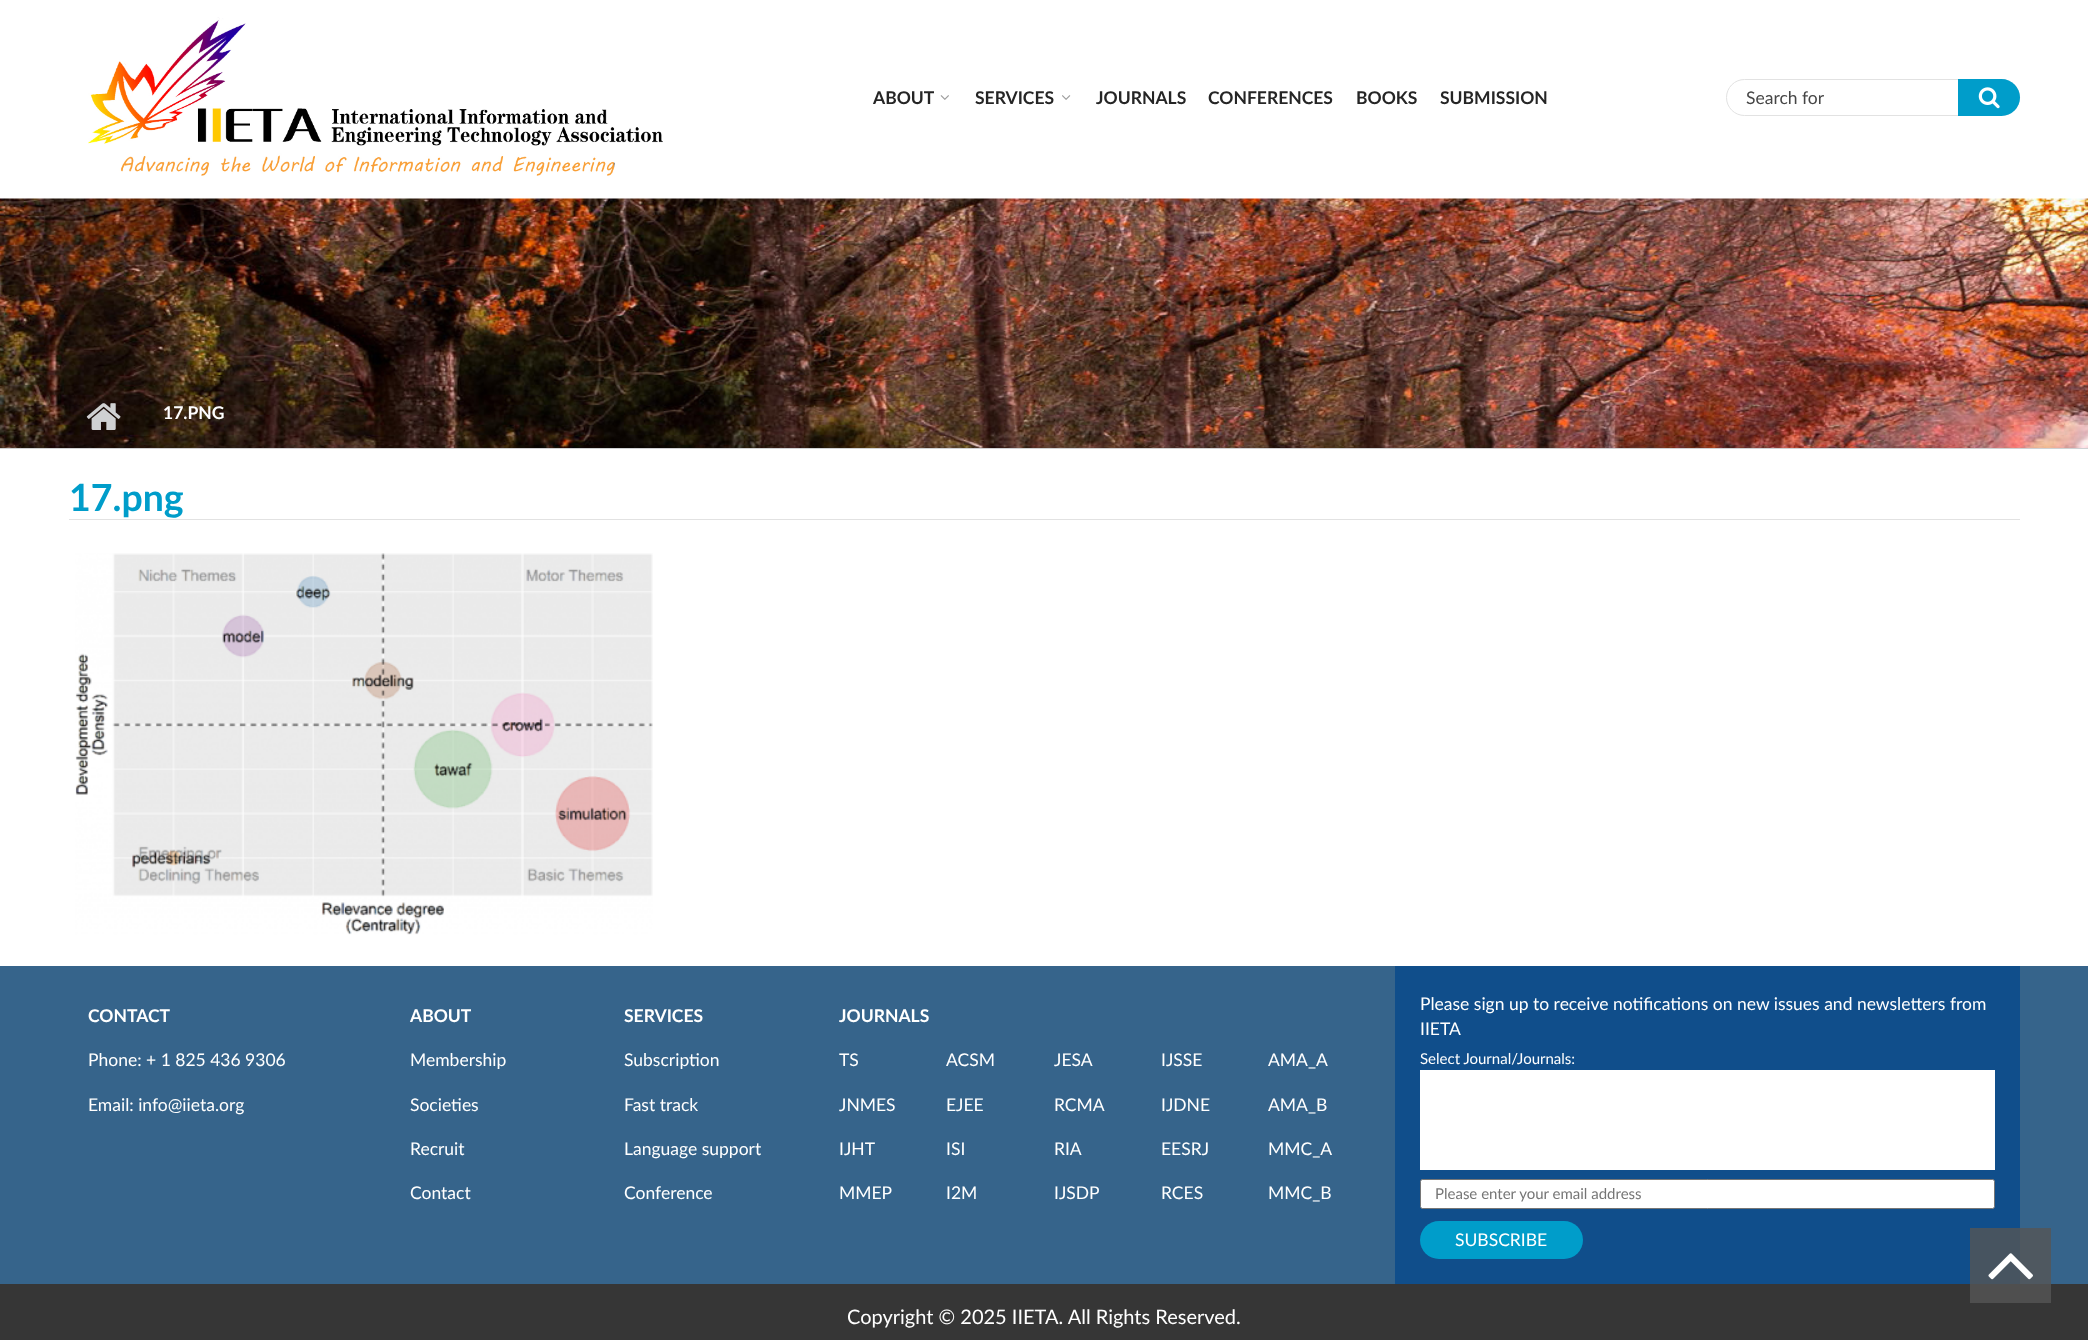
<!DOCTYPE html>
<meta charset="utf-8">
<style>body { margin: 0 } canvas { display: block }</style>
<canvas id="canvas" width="2088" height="1340"></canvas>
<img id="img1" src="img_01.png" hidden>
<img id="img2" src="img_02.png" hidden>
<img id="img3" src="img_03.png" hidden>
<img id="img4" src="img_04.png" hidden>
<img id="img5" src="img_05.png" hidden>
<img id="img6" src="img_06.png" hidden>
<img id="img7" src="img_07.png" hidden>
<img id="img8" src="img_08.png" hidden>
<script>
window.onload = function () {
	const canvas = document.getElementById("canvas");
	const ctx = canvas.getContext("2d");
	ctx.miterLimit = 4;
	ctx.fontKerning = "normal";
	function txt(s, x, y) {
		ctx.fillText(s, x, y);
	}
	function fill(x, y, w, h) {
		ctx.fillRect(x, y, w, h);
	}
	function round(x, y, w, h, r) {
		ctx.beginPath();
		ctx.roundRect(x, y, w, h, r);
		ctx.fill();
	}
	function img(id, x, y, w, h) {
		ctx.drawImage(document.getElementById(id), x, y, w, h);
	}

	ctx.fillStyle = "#FFFFFF";
	fill(0, 0, 2088, 1340);
	img("img1", 88, 17, 575, 159);
	img("img2", 940, 95, 9, 5);
	img("img3", 1062, 95, 9, 5);
	ctx.beginPath();
	ctx.roundRect(1726.5, 79.5, 293, 36, 18);
	ctx.strokeStyle = "#E2E2E2";
	ctx.stroke();
	ctx.fillStyle = "#009DCA";
	ctx.beginPath();
	ctx.roundRect(1958, 79, 62, 37, [0, 18.5, 18.5, 0]);
	ctx.fill();
	img("img4", 1978, 87, 22, 22);
	img("img5", 0, 198, 2088, 250);
	ctx.fillStyle = "#CFD0D2";
	fill(0, 448, 2088, 1);
	img("img6", 86, 403, 35, 27);
	ctx.fillStyle = "#E2E2E2";
	fill(69, 519, 1951, 1);
	img("img7", 75, 553, 578, 382);
	ctx.fillStyle = "#36648B";
	fill(0, 966, 2088, 318);
	ctx.fillStyle = "#4F5860";
	fill(2020, 1228, 31, 56);
	ctx.fillStyle = "#104E8B";
	fill(1395, 966, 625, 318);
	ctx.fillStyle = "#475460";
	fill(1970, 1228, 50, 56);
	ctx.fillStyle = "#FFFFFF";
	fill(1420, 1070, 575, 100);
	ctx.beginPath();
	ctx.roundRect(1420.5, 1179.5, 574, 29, 2);
	ctx.fill();
	ctx.strokeStyle = "#767676";
	ctx.stroke();
	ctx.fillStyle = "#009DCA";
	round(1420, 1221, 163, 38, 19);
	img("img8", 1988, 1253, 45, 27);
	ctx.fillStyle = "#363636";
	fill(0, 1284, 2088, 56);
	ctx.fillStyle = "#4F4F4F";
	fill(1970, 1284, 81, 19);
	ctx.font = "bold 17.5px Lato";
	ctx.fillStyle = "#252525";
	txt("ABOUT", 873, 104);
	txt("SERVICES", 975, 104);
	txt("JOURNALS", 1096, 104);
	txt("CONFERENCES", 1208, 104);
	txt("BOOKS", 1356, 104);
	txt("SUBMISSION", 1440, 104);
	ctx.font = "17.5px Lato";
	ctx.fillStyle = "#464646";
	txt("Search for", 1746, 104);
	ctx.font = "bold 17.5px Lato";
	ctx.fillStyle = "#FFFFFF";
	txt("17.PNG", 163, 419);
	ctx.font = "bold 37.5px Lato";
	ctx.fillStyle = "#009DCA";
	txt("17.png", 69, 511);
	ctx.font = "bold 17.5px Lato";
	ctx.fillStyle = "#FFFFFF";
	txt("CONTACT", 88, 1022);
	ctx.font = "17.5px Lato";
	txt("Phone: + 1 825 436 9306", 88, 1066);
	txt("Email: info@iieta.org", 88, 1111);
	ctx.font = "bold 17.5px Lato";
	txt("ABOUT", 410, 1022);
	ctx.font = "17.5px Lato";
	txt("Membership", 410, 1066);
	txt("Societies", 410, 1111);
	txt("Recruit", 410, 1155);
	txt("Contact", 410, 1199);
	ctx.font = "bold 17.5px Lato";
	txt("SERVICES", 624, 1022);
	ctx.font = "17.5px Lato";
	txt("Subscription", 624, 1066);
	txt("Fast track", 624, 1111);
	txt("Language support", 624, 1155);
	txt("Conference", 624, 1199);
	ctx.font = "bold 17.5px Lato";
	txt("JOURNALS", 839, 1022);
	ctx.font = "17.5px Lato";
	txt("TS", 839, 1066);
	txt("JNMES", 839, 1111);
	txt("IJHT", 839, 1155);
	txt("MMEP", 839, 1199);
	txt("ACSM", 946, 1066);
	txt("EJEE", 946, 1111);
	txt("ISI", 946, 1155);
	txt("I2M", 946, 1199);
	txt("JESA", 1054, 1066);
	txt("RCMA", 1054, 1111);
	txt("RIA", 1054, 1155);
	txt("IJSDP", 1054, 1199);
	txt("IJSSE", 1161, 1066);
	txt("IJDNE", 1161, 1111);
	txt("EESRJ", 1161, 1155);
	txt("RCES", 1161, 1199);
	txt("AMA_A", 1268, 1066);
	txt("AMA_B", 1268, 1111);
	txt("MMC_A", 1268, 1155);
	txt("MMC_B", 1268, 1199);
	txt("Please sign up to receive notifications on new issues and newsletters from", 1420, 1010);
	txt("IIETA", 1420, 1035);
	ctx.font = "15px Lato";
	txt("Select Journal/Journals:", 1420, 1064);
	ctx.fillStyle = "#757575";
	txt("Please enter your email address", 1435, 1199);
	ctx.font = "17.5px Lato";
	ctx.fillStyle = "#FFFFFF";
	txt("SUBSCRIBE", 1455, 1246);
	ctx.font = "20px Lato";
	txt("Copyright © 2025 IIETA. All Rights Reserved.", 847, 1324);
};
</script>
